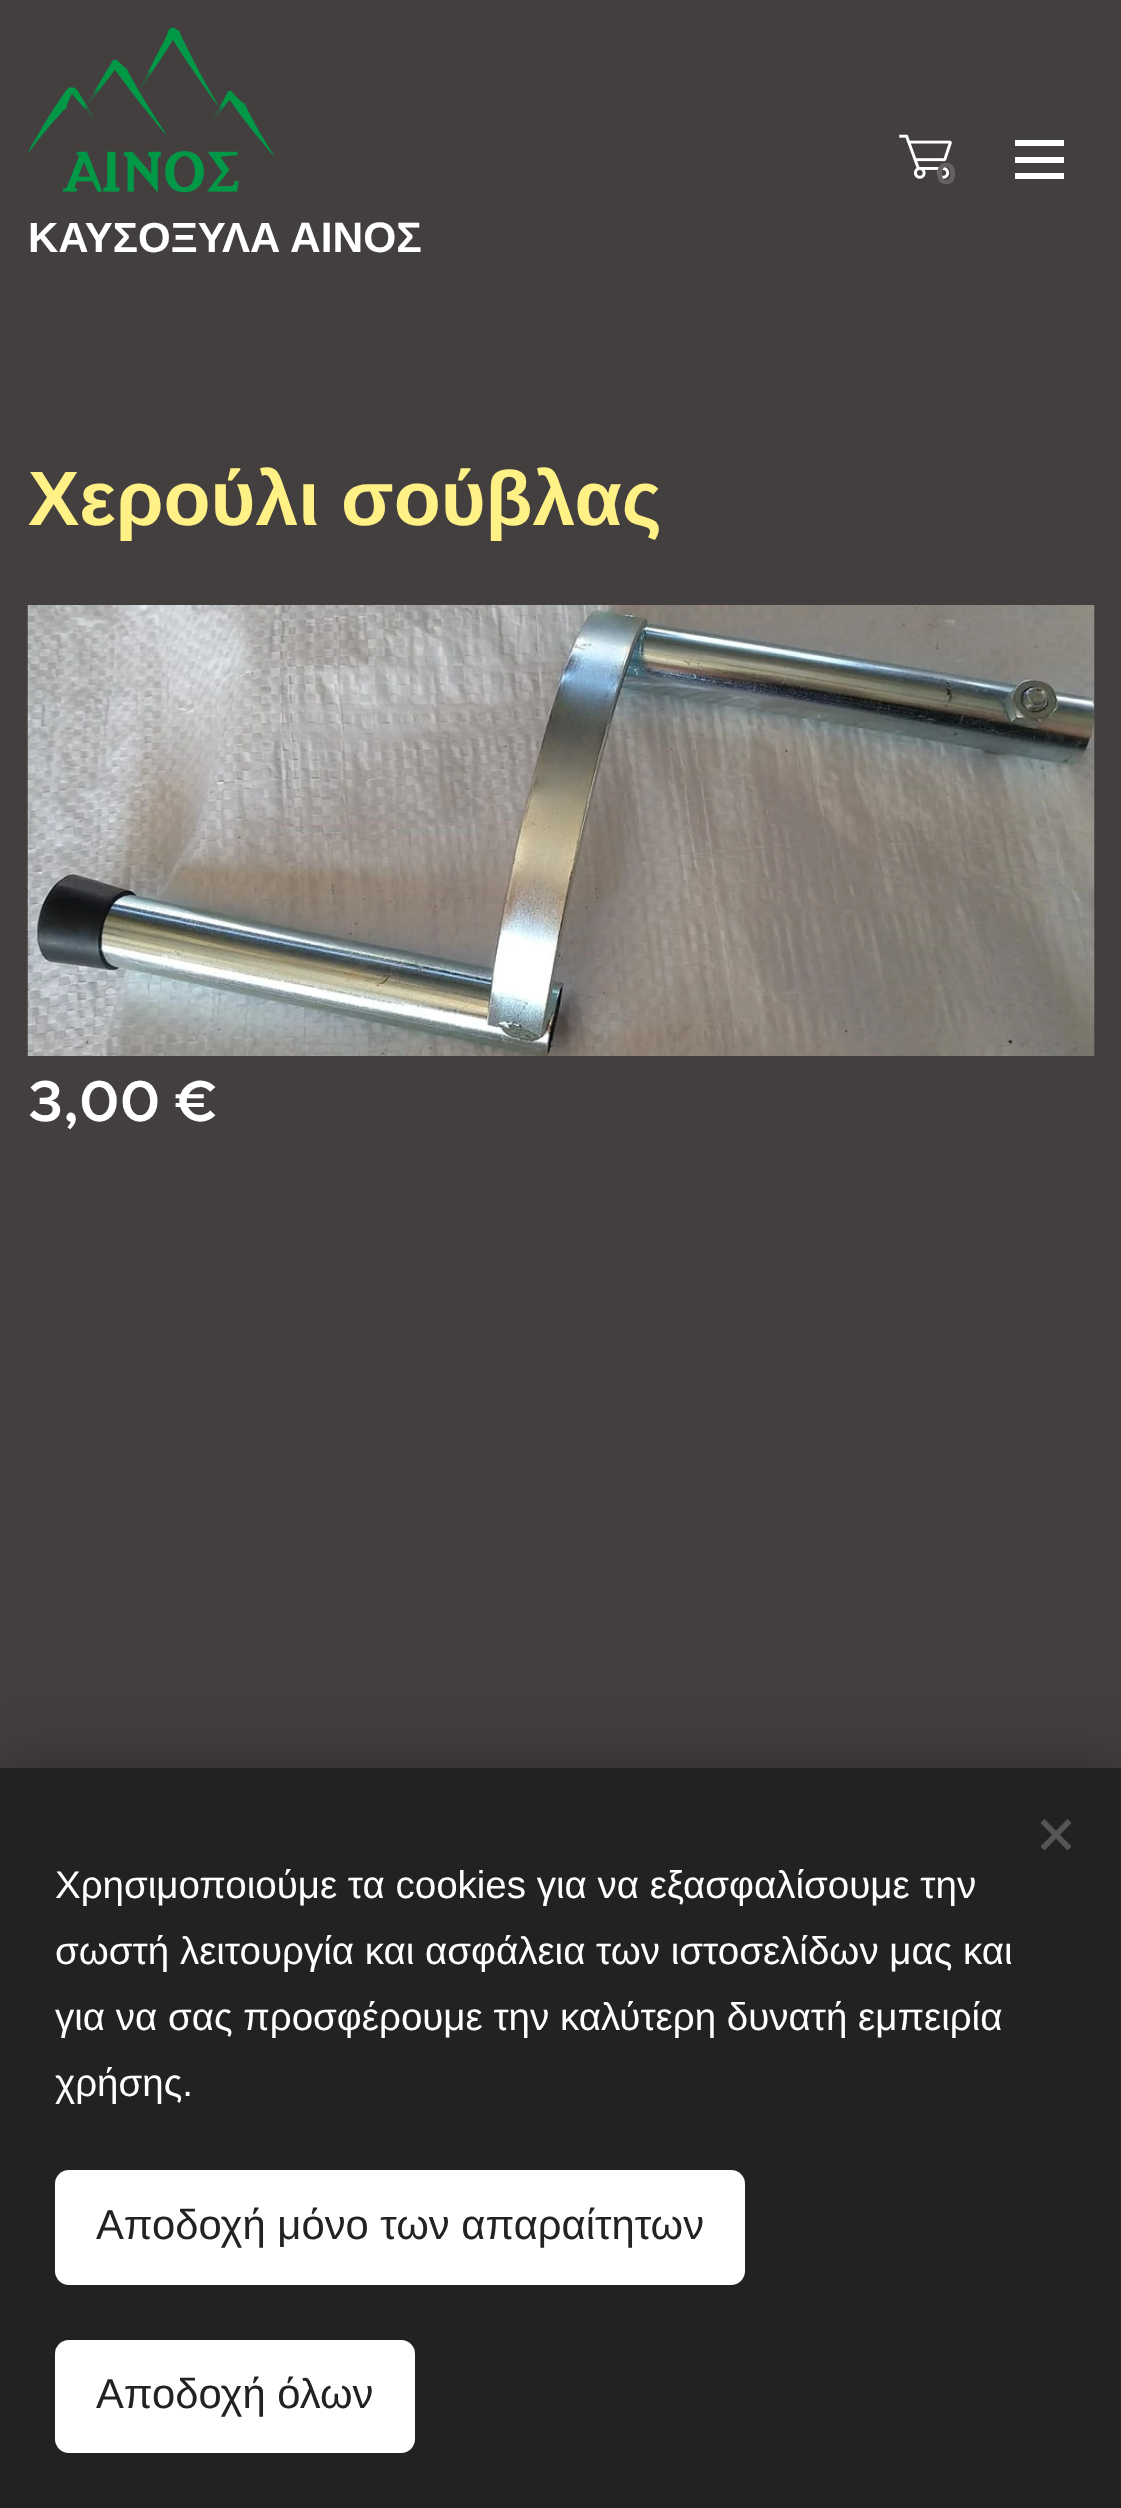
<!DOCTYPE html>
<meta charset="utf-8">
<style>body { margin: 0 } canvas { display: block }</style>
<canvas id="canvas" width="1121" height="2508"></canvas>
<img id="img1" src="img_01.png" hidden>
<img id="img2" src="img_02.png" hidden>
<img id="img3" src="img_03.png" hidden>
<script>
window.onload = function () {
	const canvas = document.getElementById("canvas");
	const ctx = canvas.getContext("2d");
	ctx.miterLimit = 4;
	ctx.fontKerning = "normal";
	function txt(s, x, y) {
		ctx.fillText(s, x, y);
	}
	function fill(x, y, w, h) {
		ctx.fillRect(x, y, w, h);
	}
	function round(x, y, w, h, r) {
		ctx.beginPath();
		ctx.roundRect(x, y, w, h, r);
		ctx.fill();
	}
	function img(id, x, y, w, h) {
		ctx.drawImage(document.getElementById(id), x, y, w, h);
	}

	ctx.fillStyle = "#443F3F";
	fill(0, 0, 1121, 2508);
	img("img1", 899, 134, 53, 45);
	ctx.fillStyle = "#FFFFFF";
	fill(1015, 157, 49, 6);
	fill(1015, 140, 49, 6);
	fill(1015, 173, 49, 6);
	img("img2", 27, 27, 248, 166);
	img("img3", 27, 605, 1068, 451);
	ctx.fillStyle = "rgba(0, 0, 0, 0.33)";
	ctx.filter = "blur(34.5px)";
	ctx.beginPath();
	ctx.rect(0, 1768, 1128, 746);
	ctx.fill();
	ctx.filter = "none";
	ctx.fillStyle = "#222222";
	fill(0, 1768, 1121, 740);
	ctx.fillStyle = "#555555";
	ctx.beginPath();
	ctx.moveTo(1040.5, 1846.5);
	ctx.lineTo(1067.5, 1819);
	ctx.lineTo(1071.5, 1823);
	ctx.lineTo(1044.5, 1850.5);
	ctx.closePath();
	ctx.fill();
	ctx.beginPath();
	ctx.moveTo(1044.5, 1819);
	ctx.lineTo(1071.5, 1846.5);
	ctx.lineTo(1067.5, 1850.5);
	ctx.lineTo(1040.5, 1823);
	ctx.closePath();
	ctx.fill();
	ctx.fillStyle = "#FFFFFF";
	round(55, 2170, 690, 115, 14);
	round(55, 2340, 360, 113, 14);
	ctx.font = "bold 30px Montserrat";
	ctx.fillStyle = "#656161";
	txt("0", 936, 184);
	ctx.font = "bold 42px Liberation Sans";
	ctx.fillStyle = "#FFFFFF";
	txt("ΚΑΥΣΟΞΥΛΑ", 28, 252);
	ctx.font = "bold 42.5px Liberation Sans";
	txt("ΑΙΝΟΣ", 290, 252);
	ctx.font = "bold 77px Liberation Sans";
	ctx.fillStyle = "#FFF186";
	txt("Χερούλι σούβλας", 28, 525);
	ctx.font = "600 58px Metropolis";
	ctx.fillStyle = "#FFFFFF";
	txt("3,00 €", 28, 1121);
	ctx.font = "38.5px Liberation Sans";
	txt("Χρησιμοποιούμε τα cookies για να εξασφαλίσουμε την", 55, 1898);
	txt("σωστή λειτουργία και ασφάλεια των ιστοσελίδων μας και", 55, 1964);
	txt("για να σας προσφέρουμε την καλύτερη δυνατή εμπειρία", 55, 2030);
	txt("χρήσης.", 55, 2096);
	ctx.font = "41.75px Liberation Sans";
	ctx.fillStyle = "#222222";
	txt("Αποδοχή μόνο των απαραίτητων", 96, 2239);
	txt("Αποδοχή όλων", 96, 2408);
};
</script>
